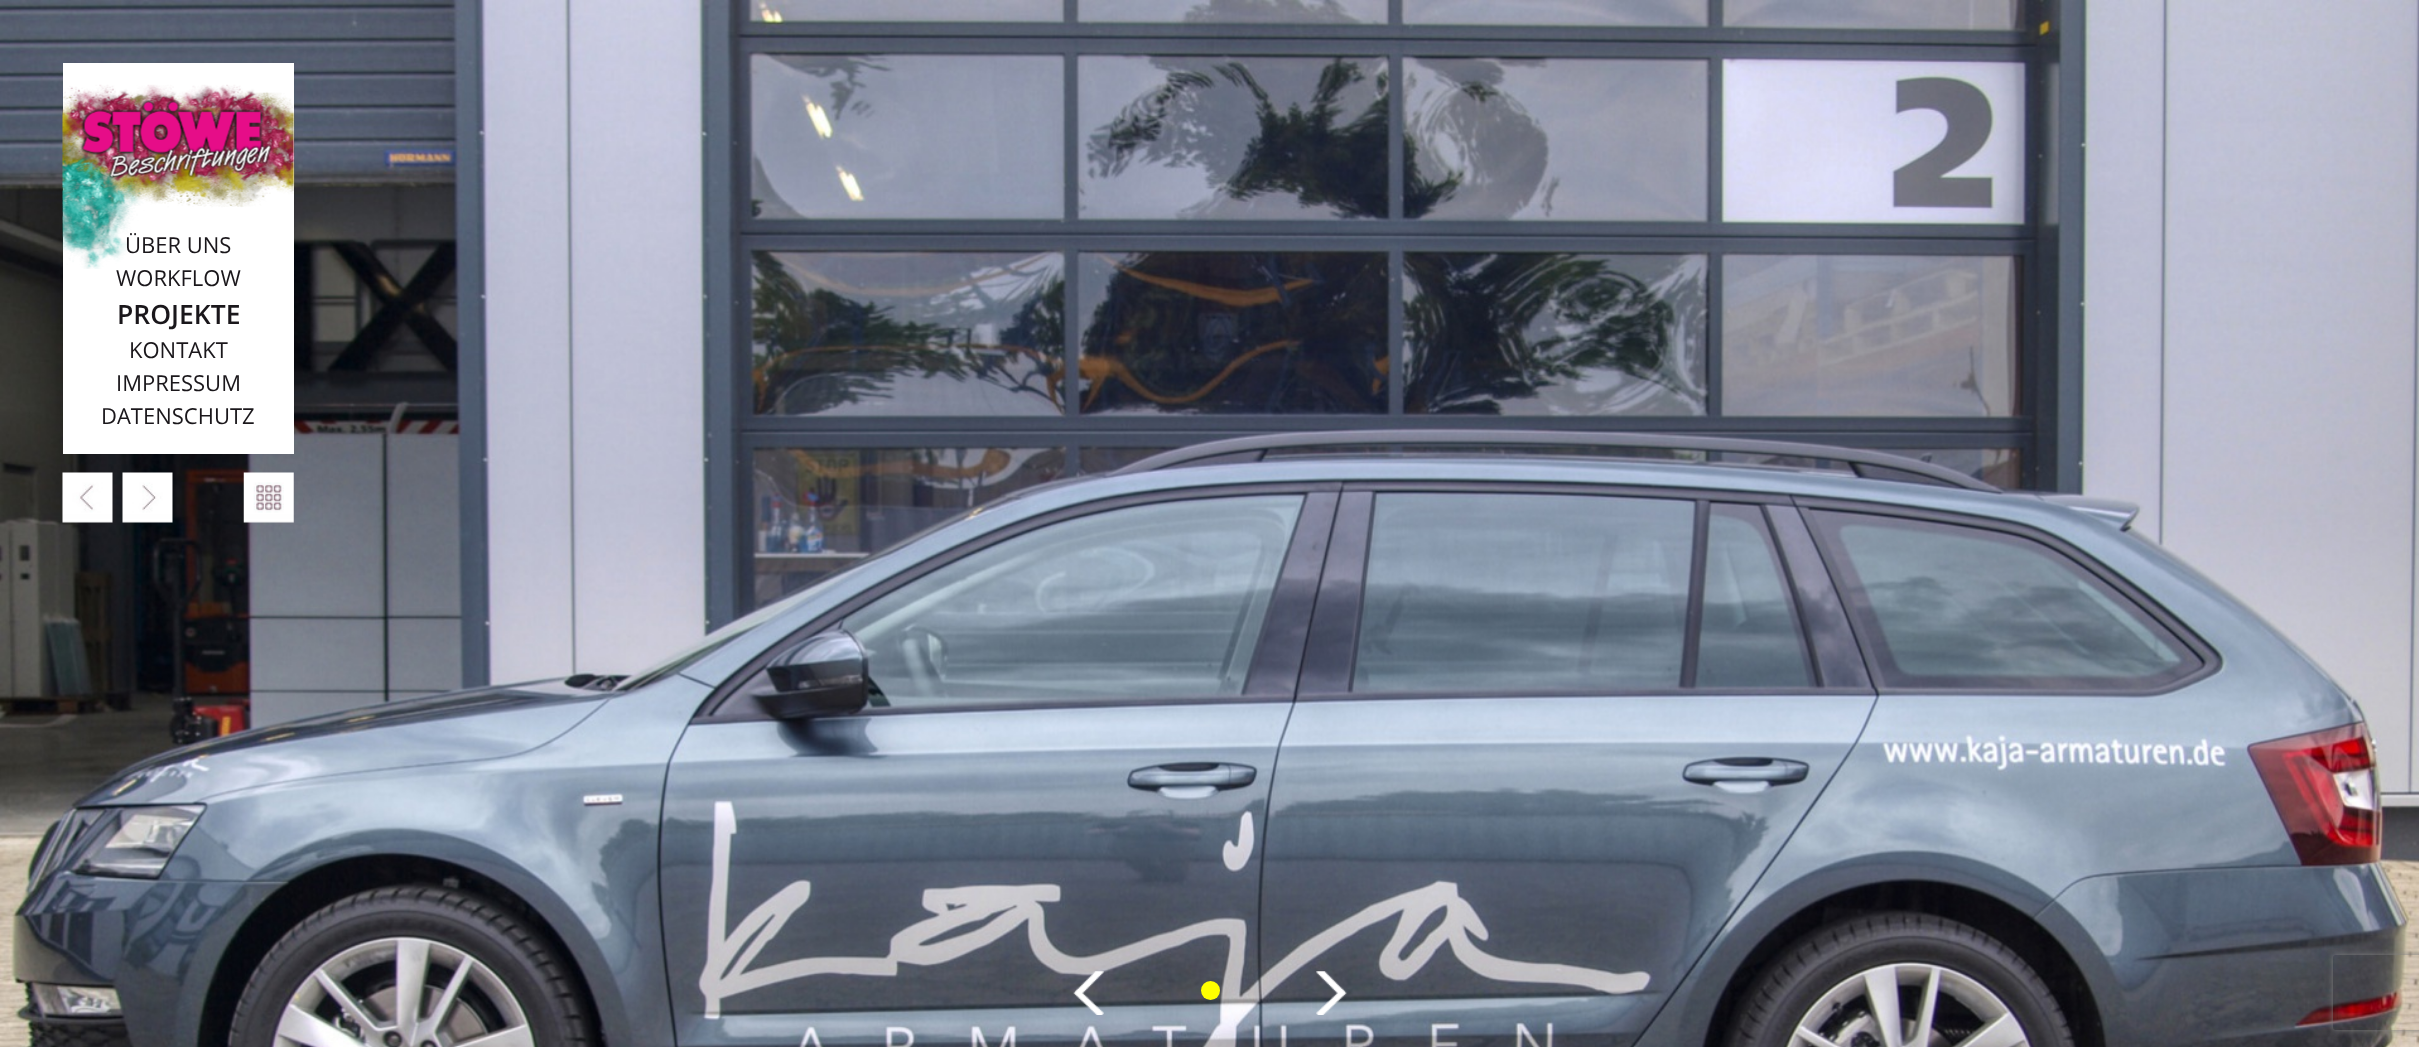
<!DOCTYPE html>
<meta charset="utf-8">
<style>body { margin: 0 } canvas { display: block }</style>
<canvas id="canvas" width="2419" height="1047"></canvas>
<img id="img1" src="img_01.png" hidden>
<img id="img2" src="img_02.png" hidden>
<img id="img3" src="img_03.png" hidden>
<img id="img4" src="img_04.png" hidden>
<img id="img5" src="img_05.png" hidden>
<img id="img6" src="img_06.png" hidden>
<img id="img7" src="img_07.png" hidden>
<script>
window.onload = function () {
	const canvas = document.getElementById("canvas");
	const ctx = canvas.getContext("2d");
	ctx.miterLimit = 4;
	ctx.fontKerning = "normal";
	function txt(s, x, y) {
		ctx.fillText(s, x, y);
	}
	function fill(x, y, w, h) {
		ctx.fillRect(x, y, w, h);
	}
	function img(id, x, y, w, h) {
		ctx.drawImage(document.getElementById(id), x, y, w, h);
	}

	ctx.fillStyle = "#FFFFFF";
	fill(0, 0, 2419, 1047);
	img("img1", 0, 0, 2419, 1047);
	img("img2", 1073, 971, 31, 44);
	ctx.fillStyle = "#FFFF00";
	ctx.beginPath();
	ctx.arc(1210.5, 990.5, 9.5, 0, Math.PI * 2);
	ctx.fill();
	img("img3", 1316, 971, 31, 44);
	ctx.fillStyle = "#FFFFFF";
	fill(63, 63, 231, 391);
	img("img4", 62, 84, 233, 185);
	img("img5", 62, 472, 51, 51);
	img("img6", 122, 472, 51, 51);
	img("img7", 243, 472, 51, 51);
	ctx.save();
	ctx.beginPath();
	ctx.moveTo(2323, 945);
	ctx.lineTo(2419, 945);
	ctx.lineTo(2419, 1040);
	ctx.lineTo(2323, 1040);
	ctx.closePath();
	ctx.moveTo(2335.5, 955);
	ctx.lineTo(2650.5, 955);
	ctx.bezierCurveTo(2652, 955, 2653, 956, 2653, 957.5);
	ctx.lineTo(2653, 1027.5);
	ctx.bezierCurveTo(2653, 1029, 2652, 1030, 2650.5, 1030);
	ctx.lineTo(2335.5, 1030);
	ctx.bezierCurveTo(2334, 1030, 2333, 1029, 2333, 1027.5);
	ctx.lineTo(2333, 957.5);
	ctx.bezierCurveTo(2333, 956, 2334, 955, 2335.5, 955);
	ctx.closePath();
	ctx.clip("evenodd");
	ctx.fillStyle = "#808080";
	ctx.filter = "blur(3px)";
	ctx.beginPath();
	ctx.roundRect(2333, 955, 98, 75, 2.5);
	ctx.fill();
	ctx.filter = "none";
	ctx.restore();
	ctx.font = "22px Open Sans";
	ctx.fillStyle = "#1A171B";
	txt("ÜBER UNS", 125, 253);
	txt("WORKFLOW", 116, 286);
	ctx.font = "600 26.5px Open Sans";
	txt("PROJEKTE", 117, 324);
	ctx.font = "22px Open Sans";
	txt("KONTAKT", 129, 358);
	txt("IMPRESSUM", 116, 391);
	txt("DATENSCHUTZ", 101, 424);
};
</script>
